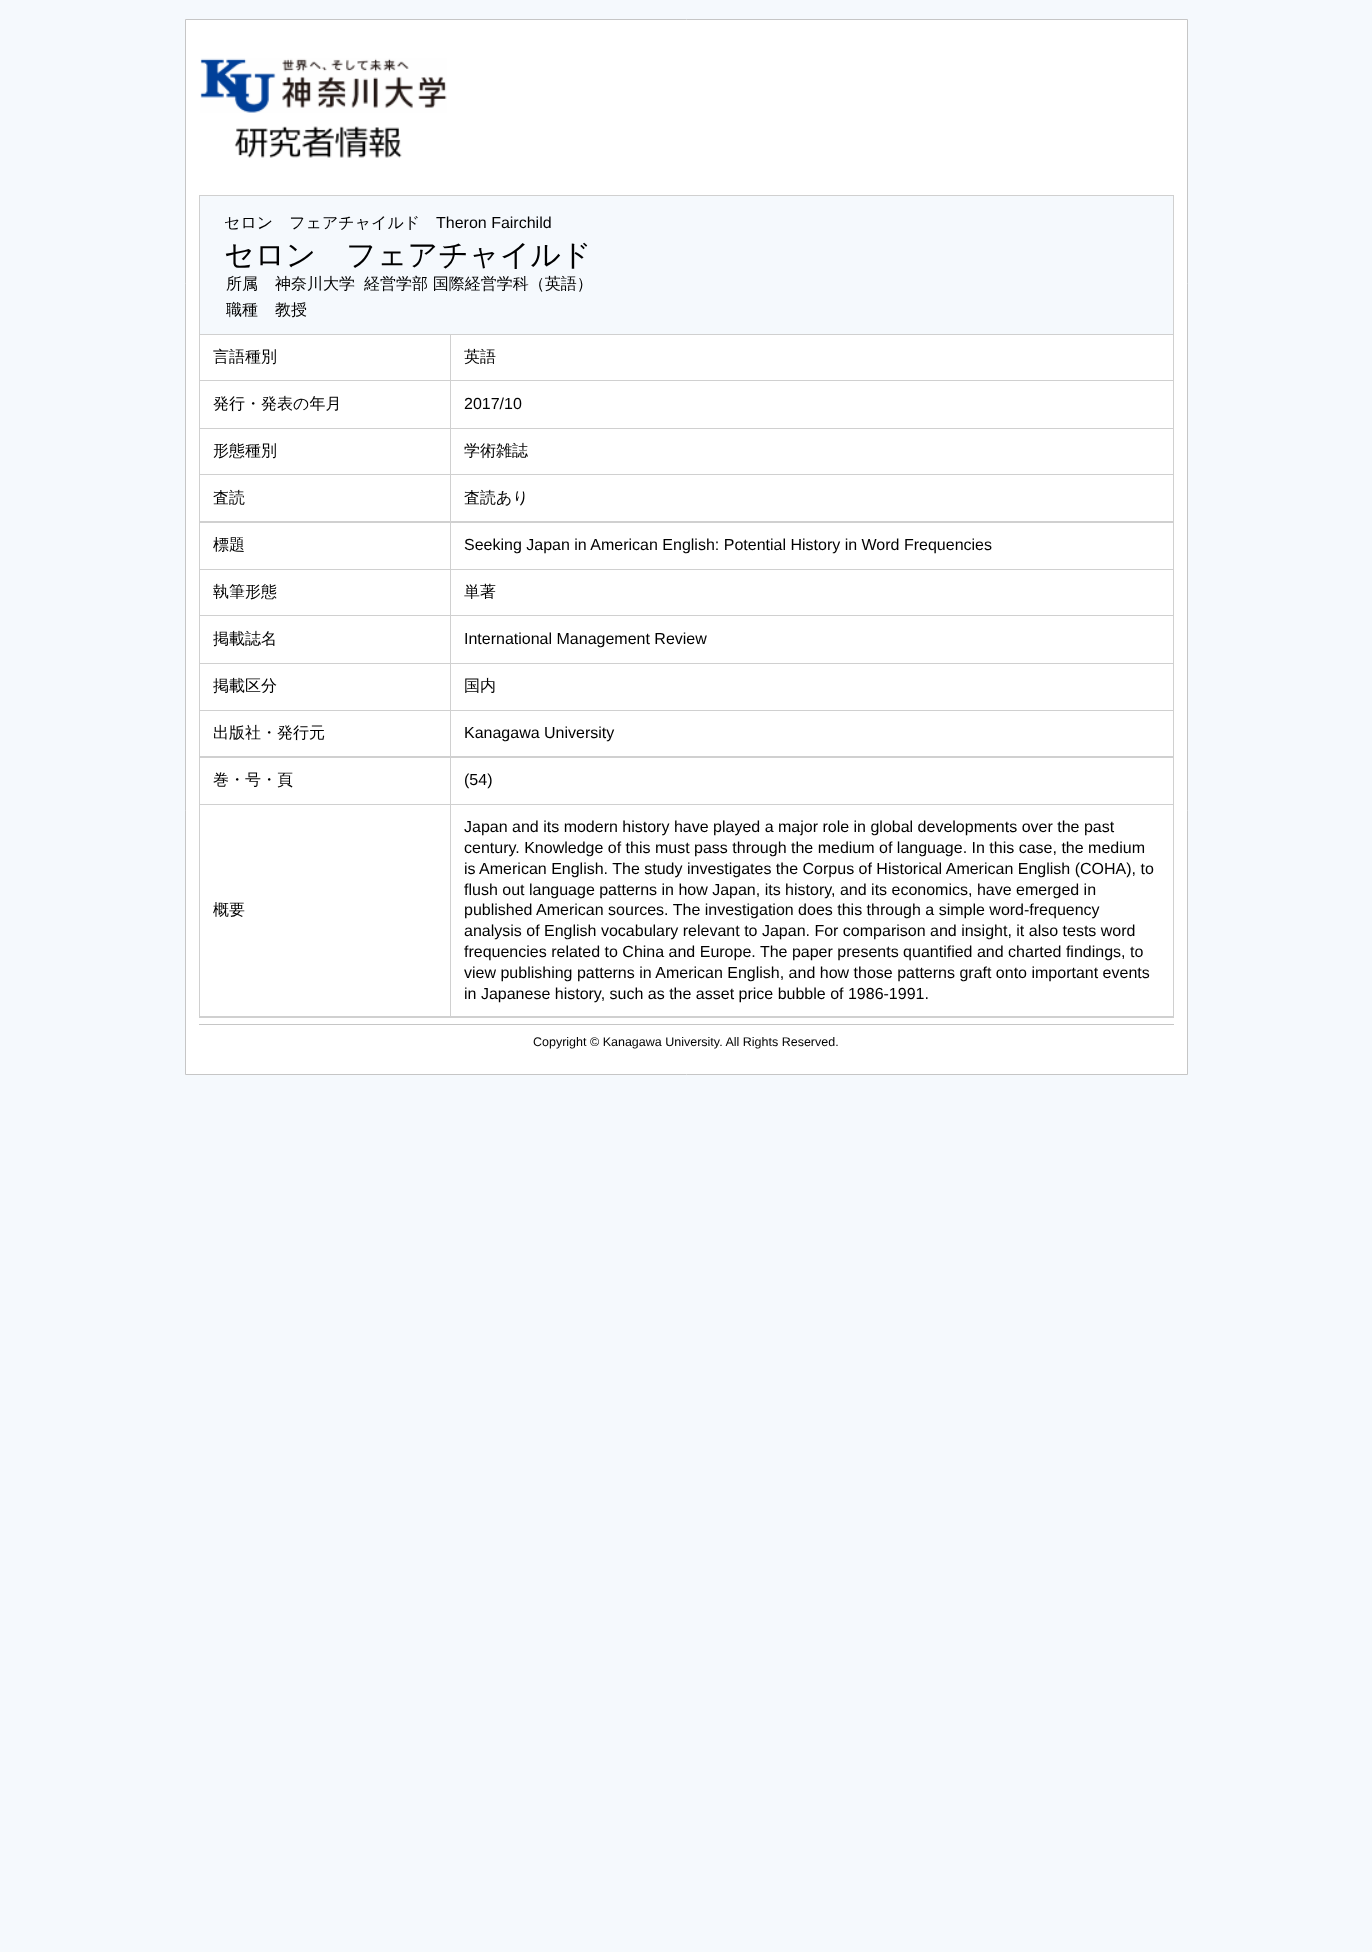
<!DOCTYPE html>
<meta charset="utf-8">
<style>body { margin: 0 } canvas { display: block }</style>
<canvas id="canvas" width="1372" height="1952"></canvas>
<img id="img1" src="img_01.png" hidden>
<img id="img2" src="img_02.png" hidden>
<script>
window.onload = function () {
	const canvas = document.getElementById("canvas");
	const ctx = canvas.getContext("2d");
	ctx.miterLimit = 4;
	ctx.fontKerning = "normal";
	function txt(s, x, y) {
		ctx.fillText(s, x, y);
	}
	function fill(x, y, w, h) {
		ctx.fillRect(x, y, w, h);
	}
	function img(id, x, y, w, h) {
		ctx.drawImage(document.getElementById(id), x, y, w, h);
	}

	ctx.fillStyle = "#F5F9FD";
	fill(0, 0, 1372, 1952);
	ctx.fillStyle = "#FFFFFF";
	ctx.beginPath();
	ctx.rect(185.5, 19.5, 1002, 1055);
	ctx.fill();
	ctx.strokeStyle = "#C6C6C6";
	ctx.stroke();
	img("img1", 200, 58, 247, 55);
	img("img2", 234, 126, 168, 32);
	ctx.fillStyle = "#D0D0D0";
	fill(199, 195, 975, 823);
	ctx.fillStyle = "#F5F9FD";
	fill(200, 196, 973, 138);
	ctx.fillStyle = "#FFFFFF";
	fill(200, 335, 250, 45);
	fill(451, 335, 722, 45);
	fill(200, 381, 250, 47);
	fill(451, 381, 722, 47);
	fill(200, 429, 250, 45);
	fill(451, 429, 722, 45);
	fill(200, 475, 250, 46);
	fill(451, 475, 722, 46);
	fill(200, 523, 250, 46);
	fill(451, 523, 722, 46);
	fill(200, 570, 250, 45);
	fill(451, 570, 722, 45);
	fill(200, 616, 250, 47);
	fill(451, 616, 722, 47);
	fill(200, 664, 250, 46);
	fill(451, 664, 722, 46);
	fill(200, 711, 250, 45);
	fill(451, 711, 722, 45);
	fill(200, 758, 250, 46);
	fill(451, 758, 722, 46);
	fill(200, 805, 250, 211);
	fill(451, 805, 722, 211);
	ctx.fillStyle = "#C6C6C6";
	fill(199, 1024, 975, 1);
	ctx.font = "500 16px WenQuanYi Zen Hei";
	ctx.fillStyle = "#000000";
	txt("セロン　フェアチャイルド", 224, 228);
	ctx.font = "16px Liberation Sans";
	txt("Theron Fairchild", 436, 228);
	ctx.font = "500 30px WenQuanYi Zen Hei";
	txt("セロン　フェアチャイルド", 224, 265);
	ctx.font = "500 16px WenQuanYi Zen Hei";
	txt("所属", 226, 289);
	txt("神奈川大学", 275, 289);
	txt("経営学部 国際経営学科（英語）", 364, 289);
	txt("職種", 226, 315);
	txt("教授", 275, 315);
	txt("言語種別", 213, 362);
	txt("英語", 464, 362);
	txt("発行・発表の年月", 213, 409);
	ctx.font = "16px Liberation Sans";
	txt("2017/10", 464, 409);
	ctx.font = "500 16px WenQuanYi Zen Hei";
	txt("形態種別", 213, 456);
	txt("学術雑誌", 464, 456);
	txt("査読", 213, 503);
	txt("査読あり", 464, 503);
	txt("標題", 213, 550);
	ctx.font = "16px Liberation Sans";
	txt("Seeking Japan in American English: Potential History in Word Frequencies", 464, 550);
	ctx.font = "500 16px WenQuanYi Zen Hei";
	txt("執筆形態", 213, 597);
	txt("単著", 464, 597);
	txt("掲載誌名", 213, 644);
	ctx.font = "16px Liberation Sans";
	txt("International Management Review", 464, 644);
	ctx.font = "500 16px WenQuanYi Zen Hei";
	txt("掲載区分", 213, 691);
	txt("国内", 464, 691);
	txt("出版社・発行元", 213, 738);
	ctx.font = "16px Liberation Sans";
	txt("Kanagawa University", 464, 738);
	ctx.font = "500 16px WenQuanYi Zen Hei";
	txt("巻・号・頁", 213, 785);
	ctx.font = "16px Liberation Sans";
	txt("(54)", 464, 785);
	ctx.font = "500 16px WenQuanYi Zen Hei";
	txt("概要", 213, 915);
	ctx.font = "16px Liberation Sans";
	txt("Japan and its modern history have played a major role in global developments over the past", 464, 832);
	txt("century. Knowledge of this must pass through the medium of language. In this case, the medium", 464, 853);
	txt("is American English. The study investigates the Corpus of Historical American English (COHA), to", 464, 874);
	txt("flush out language patterns in how Japan, its history, and its economics, have emerged in", 464, 895);
	txt("published American sources. The investigation does this through a simple word-frequency", 464, 915);
	txt("analysis of English vocabulary relevant to Japan. For comparison and insight, it also tests word", 464, 936);
	txt("frequencies related to China and Europe. The paper presents quantified and charted findings, to", 464, 957);
	txt("view publishing patterns in American English, and how those patterns graft onto important events", 464, 978);
	txt("in Japanese history, such as the asset price bubble of 1986-1991.", 464, 999);
	ctx.font = "12.5px Liberation Sans";
	txt("Copyright © Kanagawa University. All Rights Reserved.", 533, 1046);
};
</script>
